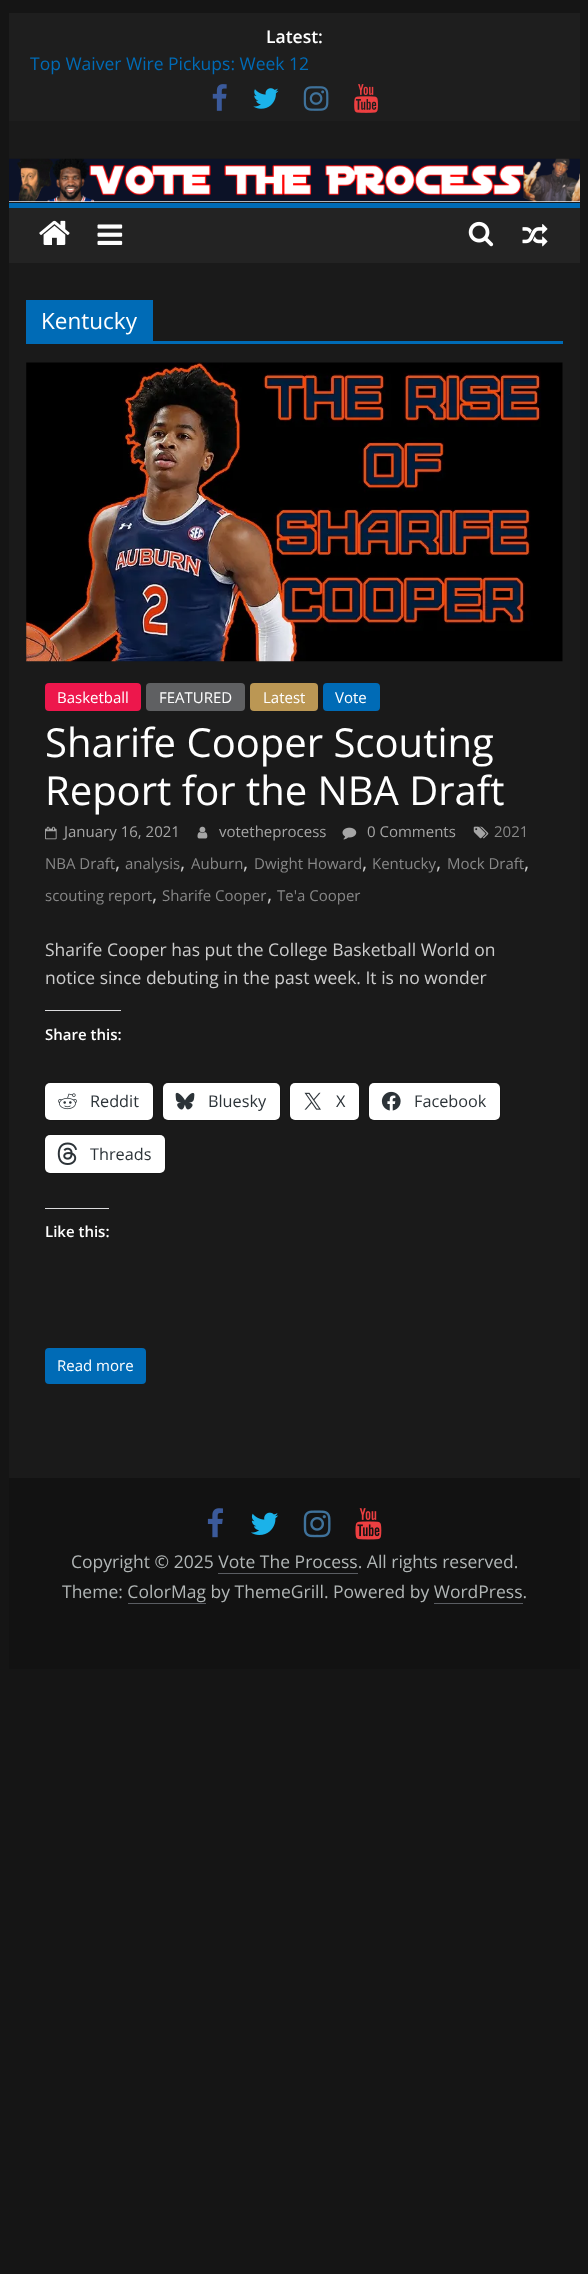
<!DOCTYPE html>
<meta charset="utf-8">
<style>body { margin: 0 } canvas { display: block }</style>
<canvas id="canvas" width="588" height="2274"></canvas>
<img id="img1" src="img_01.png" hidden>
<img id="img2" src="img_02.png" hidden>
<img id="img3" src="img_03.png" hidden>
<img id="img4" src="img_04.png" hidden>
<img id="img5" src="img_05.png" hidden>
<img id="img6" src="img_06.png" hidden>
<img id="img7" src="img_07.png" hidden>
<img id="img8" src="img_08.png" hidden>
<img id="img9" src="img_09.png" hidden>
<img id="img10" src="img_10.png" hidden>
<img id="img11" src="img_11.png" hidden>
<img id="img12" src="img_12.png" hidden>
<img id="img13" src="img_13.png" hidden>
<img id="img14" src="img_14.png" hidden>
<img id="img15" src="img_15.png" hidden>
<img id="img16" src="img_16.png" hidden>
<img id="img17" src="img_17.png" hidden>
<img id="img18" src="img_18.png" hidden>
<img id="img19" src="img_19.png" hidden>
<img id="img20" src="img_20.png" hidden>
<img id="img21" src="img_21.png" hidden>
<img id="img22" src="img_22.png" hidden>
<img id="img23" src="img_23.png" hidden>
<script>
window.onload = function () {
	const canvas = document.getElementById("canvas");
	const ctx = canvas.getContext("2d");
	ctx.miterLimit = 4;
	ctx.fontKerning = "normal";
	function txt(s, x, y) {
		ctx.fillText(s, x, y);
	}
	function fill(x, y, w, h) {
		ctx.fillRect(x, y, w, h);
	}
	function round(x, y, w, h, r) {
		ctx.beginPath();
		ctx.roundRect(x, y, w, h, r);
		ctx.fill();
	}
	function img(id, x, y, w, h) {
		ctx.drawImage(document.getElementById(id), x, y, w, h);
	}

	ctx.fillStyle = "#151515";
	fill(0, 0, 588, 2274);
	ctx.fillStyle = "#1A1A1A";
	fill(9, 121, 571, 1357);
	ctx.fillStyle = "#1E1E1E";
	fill(9, 13, 571, 108);
	img("img1", 212, 84, 15, 27);
	img("img2", 253, 88, 26, 21);
	img("img3", 303, 86, 26, 25);
	img("img4", 354, 84, 24, 29);
	ctx.fillStyle = "#EAEAEA";
	fill(9, 201, 571, 1);
	img("img5", 9, 158, 571, 44);
	ctx.fillStyle = "#232323";
	fill(9, 208, 571, 55);
	ctx.fillStyle = "#006BB6";
	fill(9, 203, 571, 5);
	img("img6", 39, 220, 31, 25);
	img("img7", 97, 224, 26, 21);
	img("img8", 468, 221, 26, 26);
	img("img9", 522, 224, 26, 23);
	fill(26, 341, 537, 3);
	fill(26, 300, 127, 41);
	img("img10", 26, 362, 537, 300);
	ctx.fillStyle = "#ED174C";
	round(45, 683, 96, 28, 4);
	ctx.fillStyle = "#5F6062";
	round(146, 683, 99, 28, 4);
	ctx.fillStyle = "#BB9754";
	round(250, 683, 68, 28, 4);
	ctx.fillStyle = "#006BB6";
	round(323, 683, 57, 28, 4);
	img("img11", 197, 826, 11, 13);
	img("img12", 473, 826, 16, 13);
	img("img13", 45, 826, 12, 14);
	img("img14", 342, 827, 15, 13);
	ctx.fillStyle = "#DCDCDE";
	fill(45, 1010, 76, 1);
	ctx.beginPath();
	ctx.roundRect(44.5, 1081.5, 109, 39, 5.5);
	ctx.strokeStyle = "#171717";
	ctx.stroke();
	ctx.fillStyle = "#FFFFFF";
	round(45, 1083, 108, 37, 5);
	img("img15", 58, 1093, 19, 17);
	ctx.beginPath();
	ctx.roundRect(161.5, 1081.5, 119, 39, 5.5);
	ctx.stroke();
	round(163, 1083, 117, 37, 5);
	img("img16", 175, 1092, 20, 18);
	ctx.beginPath();
	ctx.roundRect(289.5, 1081.5, 70, 39, 5.5);
	ctx.stroke();
	round(290, 1083, 69, 37, 5);
	img("img17", 304, 1092, 17, 18);
	ctx.beginPath();
	ctx.roundRect(368.5, 1081.5, 132, 39, 5.5);
	ctx.stroke();
	round(369, 1083, 131, 37, 5);
	img("img18", 381, 1091, 20, 20);
	ctx.beginPath();
	ctx.roundRect(44.5, 1134.5, 121, 39, 5.5);
	ctx.stroke();
	round(45, 1135, 120, 38, 5);
	img("img19", 57, 1142, 21, 23);
	ctx.fillStyle = "#DCDCDE";
	fill(45, 1208, 64, 1);
	ctx.fillStyle = "#006BB6";
	round(45, 1348, 101, 36, 4);
	ctx.fillStyle = "#121212";
	fill(9, 1478, 571, 191);
	img("img20", 207, 1508, 16, 30);
	img("img21", 251, 1512, 28, 23);
	img("img22", 303, 1510, 28, 28);
	img("img23", 355, 1508, 27, 32);
	ctx.fillStyle = "#5A5D62";
	fill(218, 1573, 140, 1);
	fill(128, 1603, 78, 1);
	fill(434, 1603, 89, 1);
	ctx.font = "600 17.5px Open Sans";
	ctx.fillStyle = "#FFFFFF";
	txt("Latest:", 266, 43);
	ctx.font = "17.5px Open Sans";
	ctx.fillStyle = "#006BB6";
	txt("Top Waiver Wire Pickups: Week 12", 30, 70);
	ctx.font = "22.5px Open Sans";
	ctx.fillStyle = "#FFFFFF";
	txt("Kentucky", 41, 329);
	ctx.font = "15px Open Sans";
	txt("Basketball", 57, 703);
	txt("FEATURED", 159, 703);
	txt("Latest", 263, 703);
	txt("Vote", 335, 703);
	ctx.font = "40px Open Sans";
	txt("Sharife Cooper Scouting", 45, 757);
	txt("Report for the NBA Draft", 45, 805);
	ctx.font = "15px Open Sans";
	ctx.fillStyle = "#A6A6A6";
	txt("votetheprocess", 219, 837);
	ctx.fillStyle = "#888888";
	txt("2021", 494, 837);
	txt("NBA Draft", 45, 869);
	ctx.font = "20px Open Sans";
	ctx.fillStyle = "#CCCCCC";
	txt(",", 115, 869);
	ctx.font = "15px Open Sans";
	ctx.fillStyle = "#888888";
	txt("analysis", 125, 869);
	ctx.font = "20px Open Sans";
	ctx.fillStyle = "#CCCCCC";
	txt(",", 180, 869);
	ctx.font = "15px Open Sans";
	ctx.fillStyle = "#888888";
	txt("Auburn", 191, 869);
	ctx.font = "20px Open Sans";
	ctx.fillStyle = "#CCCCCC";
	txt(",", 243, 869);
	ctx.font = "15px Open Sans";
	ctx.fillStyle = "#888888";
	txt("Dwight Howard", 254, 869);
	ctx.font = "20px Open Sans";
	ctx.fillStyle = "#CCCCCC";
	txt(",", 362, 869);
	ctx.font = "15px Open Sans";
	ctx.fillStyle = "#888888";
	txt("Kentucky", 372, 869);
	ctx.font = "20px Open Sans";
	ctx.fillStyle = "#CCCCCC";
	txt(",", 436, 869);
	ctx.font = "15px Open Sans";
	ctx.fillStyle = "#888888";
	txt("Mock Draft", 447, 869);
	ctx.font = "20px Open Sans";
	ctx.fillStyle = "#CCCCCC";
	txt(",", 524, 869);
	ctx.font = "15px Open Sans";
	ctx.fillStyle = "#888888";
	txt("scouting report", 45, 901);
	ctx.font = "20px Open Sans";
	ctx.fillStyle = "#CCCCCC";
	txt(",", 152, 901);
	ctx.font = "15px Open Sans";
	ctx.fillStyle = "#888888";
	txt("Sharife Cooper", 162, 901);
	ctx.font = "20px Open Sans";
	ctx.fillStyle = "#CCCCCC";
	txt(",", 267, 901);
	ctx.font = "15px Open Sans";
	ctx.fillStyle = "#888888";
	txt("Te'a Cooper", 277, 901);
	ctx.fillStyle = "#A6A6A6";
	txt("January 16, 2021", 64, 837);
	txt("0 Comments", 367, 837);
	ctx.font = "17.5px Open Sans";
	ctx.fillStyle = "#CCCCCC";
	txt("Sharife Cooper has put the College Basketball World on", 45, 956);
	txt("notice since debuting in the past week. It is no wonder", 45, 984);
	ctx.font = "600 15px Open Sans";
	ctx.fillStyle = "#FFFFFF";
	txt("Share this:", 45, 1040);
	ctx.font = "16.25px Open Sans";
	ctx.fillStyle = "#2C3338";
	txt("Reddit", 90, 1107);
	txt("Bluesky", 208, 1107);
	txt("X", 336, 1107);
	txt("Facebook", 414, 1107);
	txt("Threads", 90, 1160);
	ctx.font = "600 15px Open Sans";
	ctx.fillStyle = "#FFFFFF";
	txt("Like this:", 45, 1237);
	ctx.font = "15px Open Sans";
	txt("Read more", 57, 1371);
	ctx.font = "17.5px Open Sans";
	ctx.fillStyle = "#B1B6B6";
	txt("Copyright © 2025 Vote The Process. All rights reserved.", 71, 1568);
	txt("Theme: ColorMag by ThemeGrill. Powered by WordPress.", 62, 1598);
};
</script>
